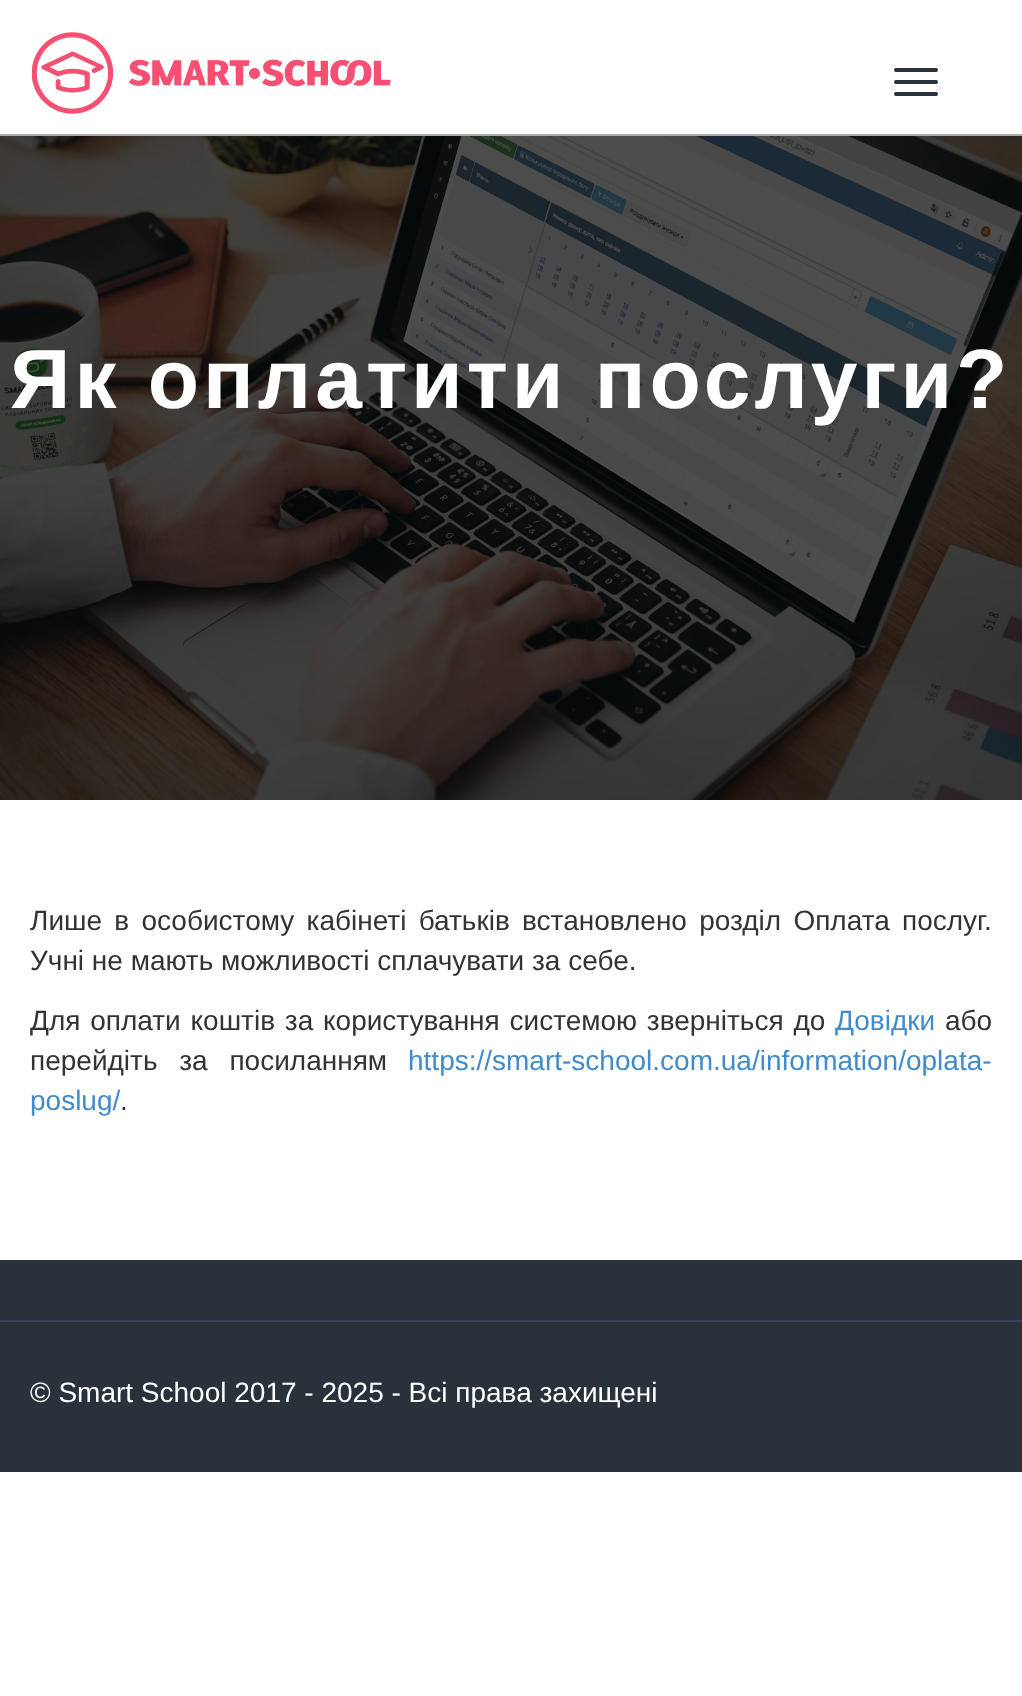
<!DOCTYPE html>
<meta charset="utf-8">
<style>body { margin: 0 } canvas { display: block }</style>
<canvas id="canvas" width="1022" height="1696"></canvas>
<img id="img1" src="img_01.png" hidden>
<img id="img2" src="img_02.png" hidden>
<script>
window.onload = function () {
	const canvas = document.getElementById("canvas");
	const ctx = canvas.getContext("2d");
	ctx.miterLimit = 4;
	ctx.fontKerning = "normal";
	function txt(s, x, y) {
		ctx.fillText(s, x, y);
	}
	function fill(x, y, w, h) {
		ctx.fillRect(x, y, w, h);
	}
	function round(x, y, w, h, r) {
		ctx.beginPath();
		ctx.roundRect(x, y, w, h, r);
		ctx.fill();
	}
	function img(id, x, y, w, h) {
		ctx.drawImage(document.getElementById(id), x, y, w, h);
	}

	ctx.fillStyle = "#FFFFFF";
	fill(0, 0, 1022, 1696);
	ctx.fillStyle = "#AAAAAA";
	fill(0, 134, 1022, 2);
	img("img1", 32, 32, 359, 82);
	ctx.fillStyle = "#29323B";
	round(894, 68, 44, 4, 2);
	round(894, 80, 44, 4, 2);
	round(894, 92, 44, 4, 2);
	img("img2", 0, 136, 1022, 664);
	fill(0, 1260, 1022, 212);
	ctx.fillStyle = "#354557";
	fill(0, 1320, 1022, 2);
	ctx.letterSpacing = "4px";
	ctx.font = "bold 84px Liberation Sans";
	ctx.fillStyle = "#FFFFFF";
	txt("Як оплатити послуги?", 10, 408);
	ctx.letterSpacing = "0px";
	ctx.wordSpacing = "4.5px";
	ctx.font = "28px Liberation Sans";
	ctx.fillStyle = "#333333";
	txt("Лише в особистому кабінеті батьків встановлено розділ Оплата послуг.", 30, 930);
	ctx.wordSpacing = "0px";
	txt("Учні не мають можливості сплачувати за себе.", 30, 970);
	ctx.wordSpacing = "2px";
	txt("Для оплати коштів за користування системою зверніться до", 30, 1030);
	ctx.wordSpacing = "0px";
	ctx.fillStyle = "#428BCA";
	txt("Довідки", 835, 1030);
	ctx.fillStyle = "#333333";
	txt("або", 945, 1030);
	ctx.wordSpacing = "14px";
	txt("перейдіть за посиланням", 30, 1070);
	ctx.wordSpacing = "0px";
	ctx.fillStyle = "#428BCA";
	txt("https://smart-school.com.ua/information/oplata-", 408, 1070);
	txt("poslug/", 30, 1110);
	ctx.fillStyle = "#333333";
	txt(".", 120, 1110);
	ctx.fillStyle = "#FFFFFF";
	txt("© Smart School 2017 - 2025 - Всі права захищені", 30, 1402);
};
</script>
